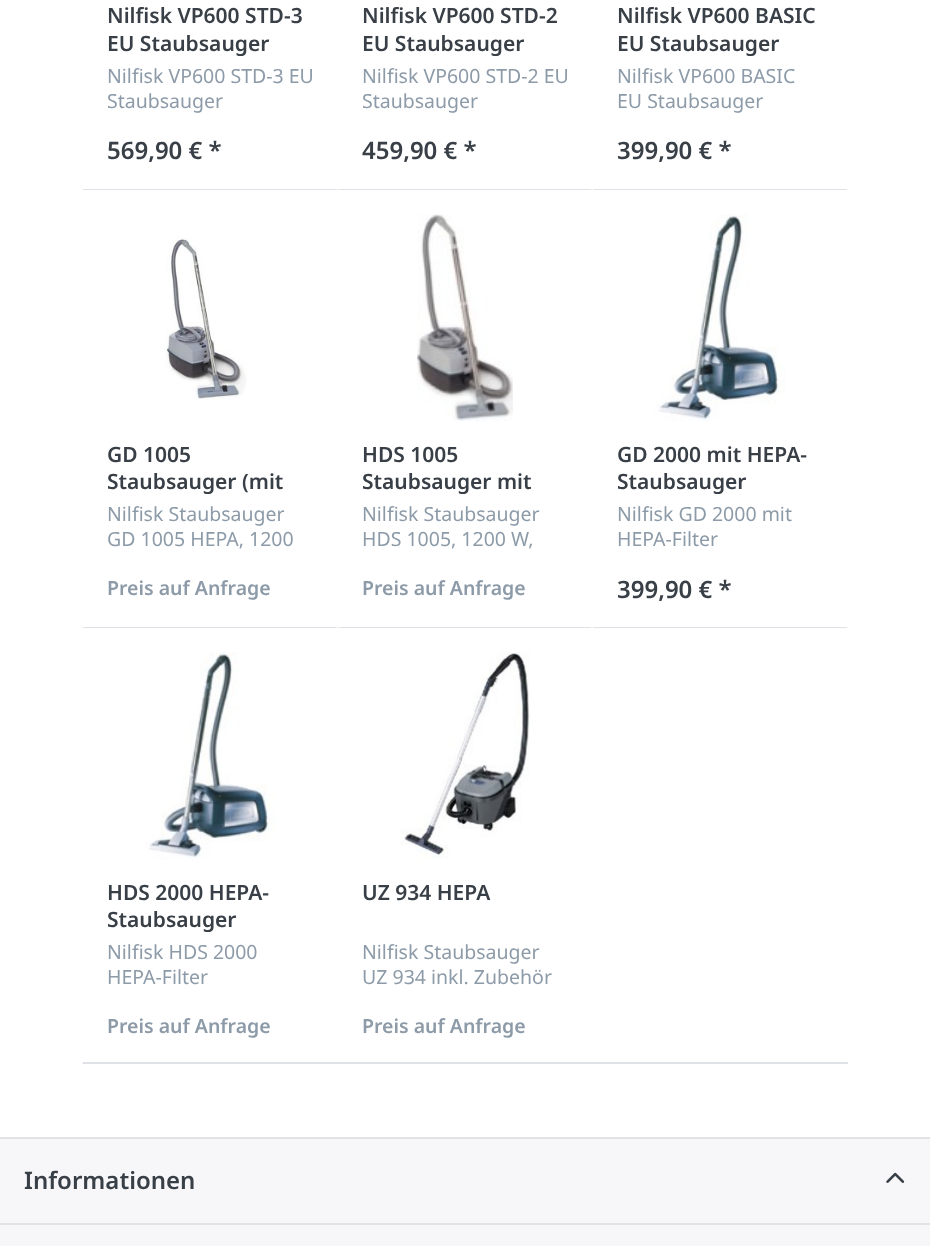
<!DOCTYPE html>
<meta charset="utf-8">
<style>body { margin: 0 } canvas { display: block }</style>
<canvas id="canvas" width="930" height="1246"></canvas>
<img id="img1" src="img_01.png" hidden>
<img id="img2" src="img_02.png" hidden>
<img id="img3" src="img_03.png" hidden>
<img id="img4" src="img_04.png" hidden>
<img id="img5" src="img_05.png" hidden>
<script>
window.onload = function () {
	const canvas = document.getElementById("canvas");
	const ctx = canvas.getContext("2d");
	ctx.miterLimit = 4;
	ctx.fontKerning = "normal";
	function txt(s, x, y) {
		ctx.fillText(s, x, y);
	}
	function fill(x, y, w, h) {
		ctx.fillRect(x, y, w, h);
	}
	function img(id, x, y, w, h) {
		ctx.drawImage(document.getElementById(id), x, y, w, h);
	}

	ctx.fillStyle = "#FFFFFF";
	fill(0, 0, 930, 1246);
	ctx.fillStyle = "#DEE2E6";
	ctx.beginPath();
	ctx.moveTo(338, 190);
	ctx.lineTo(82, 190);
	ctx.lineTo(84, 189);
	ctx.lineTo(336, 189);
	ctx.closePath();
	ctx.fill();
	ctx.beginPath();
	ctx.moveTo(592, 190);
	ctx.lineTo(338, 190);
	ctx.lineTo(339, 189);
	ctx.lineTo(591, 189);
	ctx.closePath();
	ctx.fill();
	ctx.beginPath();
	ctx.moveTo(848, 190);
	ctx.lineTo(592, 190);
	ctx.lineTo(594, 189);
	ctx.lineTo(846, 189);
	ctx.closePath();
	ctx.fill();
	ctx.beginPath();
	ctx.moveTo(338, 628);
	ctx.lineTo(82, 628);
	ctx.lineTo(84, 627);
	ctx.lineTo(336, 627);
	ctx.closePath();
	ctx.fill();
	img("img1", 165, 238, 82, 163);
	ctx.beginPath();
	ctx.moveTo(592, 628);
	ctx.lineTo(338, 628);
	ctx.lineTo(339, 627);
	ctx.lineTo(591, 627);
	ctx.closePath();
	ctx.fill();
	img("img2", 417, 214, 96, 207);
	ctx.beginPath();
	ctx.moveTo(848, 628);
	ctx.lineTo(592, 628);
	ctx.lineTo(594, 627);
	ctx.lineTo(846, 627);
	ctx.closePath();
	ctx.fill();
	img("img3", 655, 214, 131, 207);
	ctx.beginPath();
	ctx.moveTo(338, 1064);
	ctx.lineTo(82, 1064);
	ctx.lineTo(84, 1062);
	ctx.lineTo(336, 1062);
	ctx.closePath();
	ctx.fill();
	img("img3", 145, 652, 131, 207);
	img("img4", 400, 652, 130, 207);
	fill(83, 1062, 765, 2);
	ctx.fillStyle = "#F7F7F9";
	fill(0, 1139, 930, 107);
	ctx.fillStyle = "#E3E3E5";
	fill(0, 1137, 930, 2);
	fill(0, 1223, 930, 2);
	img("img5", 886, 1172, 19, 11);
	ctx.font = "600 21px Noto Sans";
	ctx.fillStyle = "#393F46";
	txt("Nilfisk VP600 STD-3", 107, 23);
	txt("EU Staubsauger", 107, 51);
	ctx.font = "19.5px Noto Sans";
	ctx.fillStyle = "#8D9BA9";
	txt("Nilfisk VP600 STD-3 EU", 107, 83);
	txt("Staubsauger", 107, 108);
	ctx.font = "600 24px Noto Sans";
	ctx.fillStyle = "#393F46";
	txt("569,90 € *", 107, 159);
	ctx.font = "600 21px Noto Sans";
	txt("Nilfisk VP600 STD-2", 362, 23);
	txt("EU Staubsauger", 362, 51);
	ctx.font = "19.5px Noto Sans";
	ctx.fillStyle = "#8D9BA9";
	txt("Nilfisk VP600 STD-2 EU", 362, 83);
	txt("Staubsauger", 362, 108);
	ctx.font = "600 24px Noto Sans";
	ctx.fillStyle = "#393F46";
	txt("459,90 € *", 362, 159);
	ctx.font = "600 21px Noto Sans";
	txt("Nilfisk VP600 BASIC", 617, 23);
	txt("EU Staubsauger", 617, 51);
	ctx.font = "19.5px Noto Sans";
	ctx.fillStyle = "#8D9BA9";
	txt("Nilfisk VP600 BASIC", 617, 83);
	txt("EU Staubsauger", 617, 108);
	ctx.font = "600 24px Noto Sans";
	ctx.fillStyle = "#393F46";
	txt("399,90 € *", 617, 159);
	ctx.font = "600 21px Noto Sans";
	txt("GD 1005", 107, 462);
	txt("Staubsauger (mit", 107, 489);
	ctx.font = "19.5px Noto Sans";
	ctx.fillStyle = "#8D9BA9";
	txt("Nilfisk Staubsauger", 107, 521);
	txt("GD 1005 HEPA, 1200", 107, 546);
	ctx.font = "600 19.5px Noto Sans";
	txt("Preis auf Anfrage", 107, 595);
	ctx.font = "600 21px Noto Sans";
	ctx.fillStyle = "#393F46";
	txt("HDS 1005", 362, 462);
	txt("Staubsauger mit", 362, 489);
	ctx.font = "19.5px Noto Sans";
	ctx.fillStyle = "#8D9BA9";
	txt("Nilfisk Staubsauger", 362, 521);
	txt("HDS 1005, 1200 W,", 362, 546);
	ctx.font = "600 19.5px Noto Sans";
	txt("Preis auf Anfrage", 362, 595);
	ctx.font = "600 21px Noto Sans";
	ctx.fillStyle = "#393F46";
	txt("GD 2000 mit HEPA-", 617, 462);
	txt("Staubsauger", 617, 489);
	ctx.font = "19.5px Noto Sans";
	ctx.fillStyle = "#8D9BA9";
	txt("Nilfisk GD 2000 mit", 617, 521);
	txt("HEPA-Filter", 617, 546);
	ctx.font = "600 24px Noto Sans";
	ctx.fillStyle = "#393F46";
	txt("399,90 € *", 617, 598);
	ctx.font = "600 21px Noto Sans";
	txt("HDS 2000 HEPA-", 107, 900);
	txt("Staubsauger", 107, 927);
	ctx.font = "19.5px Noto Sans";
	ctx.fillStyle = "#8D9BA9";
	txt("Nilfisk HDS 2000", 107, 959);
	txt("HEPA-Filter", 107, 984);
	ctx.font = "600 19.5px Noto Sans";
	txt("Preis auf Anfrage", 107, 1033);
	ctx.font = "600 21px Noto Sans";
	ctx.fillStyle = "#393F46";
	txt("UZ 934 HEPA", 362, 900);
	ctx.font = "19.5px Noto Sans";
	ctx.fillStyle = "#8D9BA9";
	txt("Nilfisk Staubsauger", 362, 959);
	txt("UZ 934 inkl. Zubehör", 362, 984);
	ctx.font = "600 19.5px Noto Sans";
	txt("Preis auf Anfrage", 362, 1033);
	ctx.font = "600 24px Noto Sans";
	ctx.fillStyle = "#393F46";
	txt("Informationen", 24, 1189);
};
</script>
